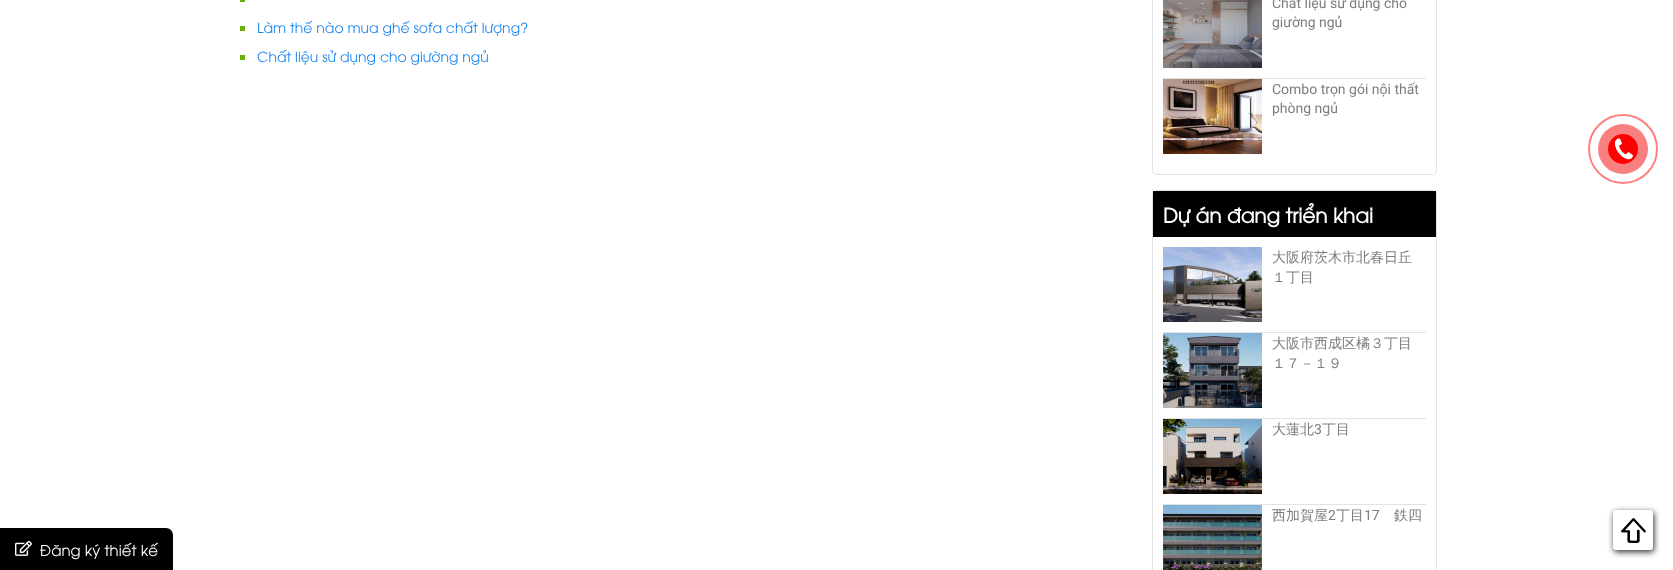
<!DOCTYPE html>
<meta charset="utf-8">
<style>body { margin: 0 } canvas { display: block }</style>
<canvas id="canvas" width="1673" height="570"></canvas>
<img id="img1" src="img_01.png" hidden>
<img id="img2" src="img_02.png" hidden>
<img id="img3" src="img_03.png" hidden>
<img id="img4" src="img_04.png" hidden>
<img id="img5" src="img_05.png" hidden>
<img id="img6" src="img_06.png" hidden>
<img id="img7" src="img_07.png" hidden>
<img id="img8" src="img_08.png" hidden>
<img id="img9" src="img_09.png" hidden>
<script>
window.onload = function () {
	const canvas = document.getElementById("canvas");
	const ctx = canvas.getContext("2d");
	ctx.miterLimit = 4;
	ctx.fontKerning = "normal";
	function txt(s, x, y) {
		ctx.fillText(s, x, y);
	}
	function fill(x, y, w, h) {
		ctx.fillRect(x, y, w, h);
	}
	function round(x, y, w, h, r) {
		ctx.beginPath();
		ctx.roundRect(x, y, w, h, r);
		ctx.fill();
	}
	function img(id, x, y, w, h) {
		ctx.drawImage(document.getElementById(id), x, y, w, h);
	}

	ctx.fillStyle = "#FFFFFF";
	fill(0, 0, 1673, 570);
	ctx.fillStyle = "#6AAF08";
	fill(240, 0, 5, 2);
	fill(240, 26, 5, 5);
	fill(240, 55, 5, 5);
	ctx.beginPath();
	ctx.roundRect(1152.5, -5.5, 284, 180, 4.5);
	ctx.strokeStyle = "#E2E2E2";
	ctx.stroke();
	ctx.fillStyle = "#E2E2E2";
	fill(1163, 78, 263, 1);
	img("img1", 1163, 0, 99, 68);
	img("img2", 1163, 79, 99, 75);
	ctx.beginPath();
	ctx.roundRect(1152.5, 190.5, 284, 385, 4.5);
	ctx.stroke();
	ctx.fillStyle = "#000000";
	fill(1153, 191, 283, 46);
	ctx.fillStyle = "#E2E2E2";
	fill(1163, 332, 263, 1);
	img("img3", 1163, 247, 99, 75);
	fill(1163, 418, 263, 1);
	img("img4", 1163, 333, 99, 75);
	fill(1163, 504, 263, 1);
	img("img5", 1163, 419, 99, 75);
	img("img6", 1163, 505, 99, 65);
	ctx.fillStyle = "#000000";
	ctx.beginPath();
	ctx.roundRect(0, 528, 173, 42, [0, 7, 0, 0]);
	ctx.fill();
	img("img7", 15, 540, 17, 16);
	ctx.fillStyle = "#2C2C2C";
	ctx.filter = "blur(3px)";
	ctx.beginPath();
	ctx.roundRect(1614, 512, 40, 40, 3);
	ctx.fill();
	ctx.filter = "none";
	ctx.fillStyle = "#FFFFFF";
	round(1613, 510, 40, 40, 3);
	img("img8", 1621, 518, 25, 25);
	ctx.beginPath();
	ctx.arc(1623, 149, 34, 0, Math.PI * 2);
	ctx.strokeStyle = "#FF8080";
	ctx.lineWidth = 2;
	ctx.stroke();
	ctx.fillStyle = "#F98080";
	ctx.beginPath();
	ctx.arc(1623, 149, 25, 0, Math.PI * 2);
	ctx.fill();
	ctx.fillStyle = "#FF0000";
	ctx.beginPath();
	ctx.arc(1623, 149, 15, 0, Math.PI * 2);
	ctx.fill();
	img("img9", 1614, 138, 19, 22);
	ctx.font = "14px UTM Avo";
	ctx.fillStyle = "#1E87F0";
	txt("Làm thế nào mua ghế sofa chất lượng?", 257, 33);
	txt("Chất liệu sử dụng cho giường ngủ", 257, 62);
	ctx.font = "14px Roboto";
	ctx.fillStyle = "#7D7D7D";
	txt("Chất liệu sử dụng cho", 1272, 8);
	txt("giường ngủ", 1272, 27);
	txt("Combo trọn gói nội thất", 1272, 94);
	txt("phòng ngủ", 1272, 113);
	ctx.font = "bold 20px UTM Avo";
	ctx.fillStyle = "#FFFFFF";
	txt("Dự án đang triển khai", 1163, 223);
	ctx.font = "500 14px WenQuanYi Zen Hei";
	ctx.fillStyle = "#7D7D7D";
	txt("大阪府茨木市北春日丘", 1272, 262);
	txt("１丁目", 1272, 282);
	txt("大阪市西成区橘３丁目", 1272, 348);
	txt("１７－１９", 1272, 368);
	txt("大蓮北", 1272, 434);
	ctx.font = "14px Roboto";
	txt("3", 1314, 434);
	ctx.font = "500 14px WenQuanYi Zen Hei";
	txt("丁目", 1322, 434);
	txt("西加賀屋", 1272, 520);
	ctx.font = "14px Roboto";
	txt("2", 1328, 520);
	ctx.font = "500 14px WenQuanYi Zen Hei";
	txt("丁目", 1336, 520);
	ctx.font = "14px Roboto";
	txt("17", 1364, 520);
	ctx.font = "500 14px WenQuanYi Zen Hei";
	txt("鉄四", 1394, 520);
	ctx.font = "15px UTM Avo";
	ctx.fillStyle = "#FFFFFF";
	txt("Đăng ký thiết kế", 40, 556);
};
</script>
